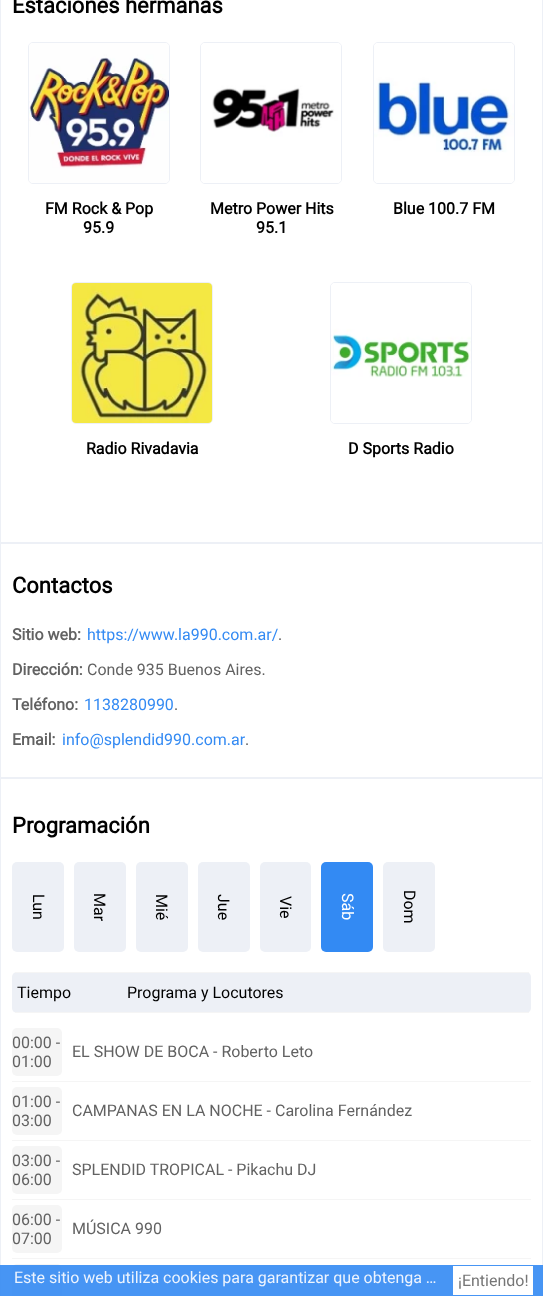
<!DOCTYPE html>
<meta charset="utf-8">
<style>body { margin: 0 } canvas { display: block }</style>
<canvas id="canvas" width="543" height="1296"></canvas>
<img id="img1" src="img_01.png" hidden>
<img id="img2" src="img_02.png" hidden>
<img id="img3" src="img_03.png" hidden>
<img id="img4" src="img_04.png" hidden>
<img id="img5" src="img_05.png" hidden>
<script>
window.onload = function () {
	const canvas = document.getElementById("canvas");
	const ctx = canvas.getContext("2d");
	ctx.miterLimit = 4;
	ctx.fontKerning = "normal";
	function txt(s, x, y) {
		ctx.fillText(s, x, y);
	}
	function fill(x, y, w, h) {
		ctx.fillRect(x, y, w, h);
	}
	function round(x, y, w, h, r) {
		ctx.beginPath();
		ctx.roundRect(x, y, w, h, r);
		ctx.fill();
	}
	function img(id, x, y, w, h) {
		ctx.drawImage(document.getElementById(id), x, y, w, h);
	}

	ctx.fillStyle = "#EDF0F6";
	fill(0, 0, 543, 1296);
	ctx.fillStyle = "#FFFFFF";
	fill(1, 0, 541, 542);
	ctx.beginPath();
	ctx.roundRect(28.5, 42.5, 141, 141, 4.5);
	ctx.strokeStyle = "#EDF0F6";
	ctx.stroke();
	img("img1", 29, 43, 140, 140);
	ctx.beginPath();
	ctx.roundRect(200.5, 42.5, 141, 141, 4.5);
	ctx.stroke();
	img("img2", 201, 43, 140, 140);
	ctx.beginPath();
	ctx.roundRect(373.5, 42.5, 141, 141, 4.5);
	ctx.stroke();
	img("img3", 374, 43, 140, 140);
	ctx.beginPath();
	ctx.roundRect(71.5, 282.5, 141, 141, 4.5);
	ctx.stroke();
	img("img4", 72, 283, 140, 140);
	ctx.beginPath();
	ctx.roundRect(330.5, 282.5, 141, 141, 4.5);
	ctx.stroke();
	img("img5", 331, 283, 140, 140);
	fill(1, 544, 541, 233);
	fill(1, 779, 541, 517);
	ctx.fillStyle = "#EDF0F6";
	round(12, 862, 52, 90, 5);
	round(74, 862, 52, 90, 5);
	round(136, 862, 52, 90, 5);
	round(198, 862, 52, 90, 5);
	round(260, 862, 51, 90, 5);
	ctx.fillStyle = "#338AF3";
	round(321, 862, 52, 90, 5);
	ctx.fillStyle = "#EDF0F6";
	round(383, 862, 52, 90, 5);
	round(12, 972, 519, 41, 5);
	ctx.fillStyle = "#F5F5F5";
	fill(15, 972, 514, 1);
	fill(15, 1012, 514, 1);
	fill(12, 1081, 519, 1);
	round(12, 1028, 50, 48, 5);
	fill(12, 1140, 519, 1);
	round(12, 1087, 50, 48, 5);
	fill(12, 1199, 519, 1);
	round(12, 1146, 50, 48, 5);
	fill(12, 1258, 519, 1);
	round(12, 1205, 50, 48, 5);
	round(12, 1264, 50, 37, 5);
	ctx.fillStyle = "rgba(51, 138, 243, 0.9)";
	fill(0, 1265, 543, 31);
	ctx.fillStyle = "#FFFFFF";
	fill(453, 1266, 80, 29);
	ctx.font = "bold 22px Roboto";
	ctx.fillStyle = "#000000";
	txt("Estaciones hermanas", 12, 13);
	ctx.font = "bold 16px Roboto";
	txt("FM Rock & Pop", 45, 214);
	txt("95.9", 83, 233);
	txt("Metro Power Hits", 210, 214);
	txt("95.1", 256, 233);
	txt("Blue 100.7 FM", 393, 214);
	txt("Radio Rivadavia", 86, 454);
	txt("D Sports Radio", 348, 454);
	ctx.font = "bold 22px Roboto";
	txt("Contactos", 12, 593);
	ctx.font = "bold 16px Roboto";
	ctx.fillStyle = "#626262";
	txt("Sitio web:", 12, 640);
	ctx.font = "16px Roboto";
	ctx.fillStyle = "#338AF3";
	txt("https://www.la990.com.ar/", 87, 640);
	ctx.fillStyle = "#626262";
	txt(".", 278, 640);
	ctx.font = "bold 16px Roboto";
	txt("Dirección:", 12, 675);
	ctx.font = "16px Roboto";
	txt("Conde 935 Buenos Aires.", 87, 675);
	ctx.font = "bold 16px Roboto";
	txt("Teléfono:", 12, 710);
	ctx.font = "16px Roboto";
	ctx.fillStyle = "#338AF3";
	txt("1138280990", 84, 710);
	ctx.fillStyle = "#626262";
	txt(".", 174, 710);
	ctx.font = "bold 16px Roboto";
	txt("Email:", 12, 745);
	ctx.font = "16px Roboto";
	ctx.fillStyle = "#338AF3";
	txt("info@splendid990.com.ar", 62, 745);
	ctx.fillStyle = "#626262";
	txt(".", 245, 745);
	ctx.font = "bold 22px Roboto";
	ctx.fillStyle = "#000000";
	txt("Programación", 12, 833);
	ctx.font = "16px Roboto";
	ctx.save();
	ctx.translate(33, 894);
	ctx.rotate(90 * Math.PI / 180);
	ctx.fillText("Lun", 0, 0);
	ctx.restore();
	ctx.save();
	ctx.translate(94, 893);
	ctx.rotate(90 * Math.PI / 180);
	ctx.fillText("Mar", 0, 0);
	ctx.restore();
	ctx.save();
	ctx.translate(156, 894);
	ctx.rotate(90 * Math.PI / 180);
	ctx.fillText("Mié", 0, 0);
	ctx.restore();
	ctx.save();
	ctx.translate(218, 894);
	ctx.rotate(90 * Math.PI / 180);
	ctx.fillText("Jue", 0, 0);
	ctx.restore();
	ctx.save();
	ctx.translate(280, 896);
	ctx.rotate(90 * Math.PI / 180);
	ctx.fillText("Vie", 0, 0);
	ctx.restore();
	ctx.fillStyle = "#FFFFFF";
	ctx.save();
	ctx.translate(342, 893);
	ctx.rotate(90 * Math.PI / 180);
	ctx.fillText("Sáb", 0, 0);
	ctx.restore();
	ctx.fillStyle = "#000000";
	ctx.save();
	ctx.translate(404, 890);
	ctx.rotate(90 * Math.PI / 180);
	ctx.fillText("Dom", 0, 0);
	ctx.restore();
	txt("Tiempo", 17, 998);
	txt("Programa y Locutores", 127, 998);
	ctx.fillStyle = "#626262";
	txt("00:00 -", 12, 1048);
	txt("01:00", 12, 1067);
	txt("EL SHOW DE BOCA - Roberto Leto", 72, 1057);
	txt("01:00 -", 12, 1107);
	txt("03:00", 12, 1126);
	txt("CAMPANAS EN LA NOCHE - Carolina Fernández", 72, 1116);
	txt("03:00 -", 12, 1166);
	txt("06:00", 12, 1185);
	txt("SPLENDID TROPICAL - Pikachu DJ", 72, 1175);
	txt("06:00 -", 12, 1225);
	txt("07:00", 12, 1244);
	txt("MÚSICA 990", 72, 1234);
	ctx.fillStyle = "#EDF4FE";
	txt("Este sitio web utiliza cookies para garantizar que obtenga …", 14, 1283);
	ctx.fillStyle = "#767676";
	txt("¡Entiendo!", 458, 1286);
};
</script>
